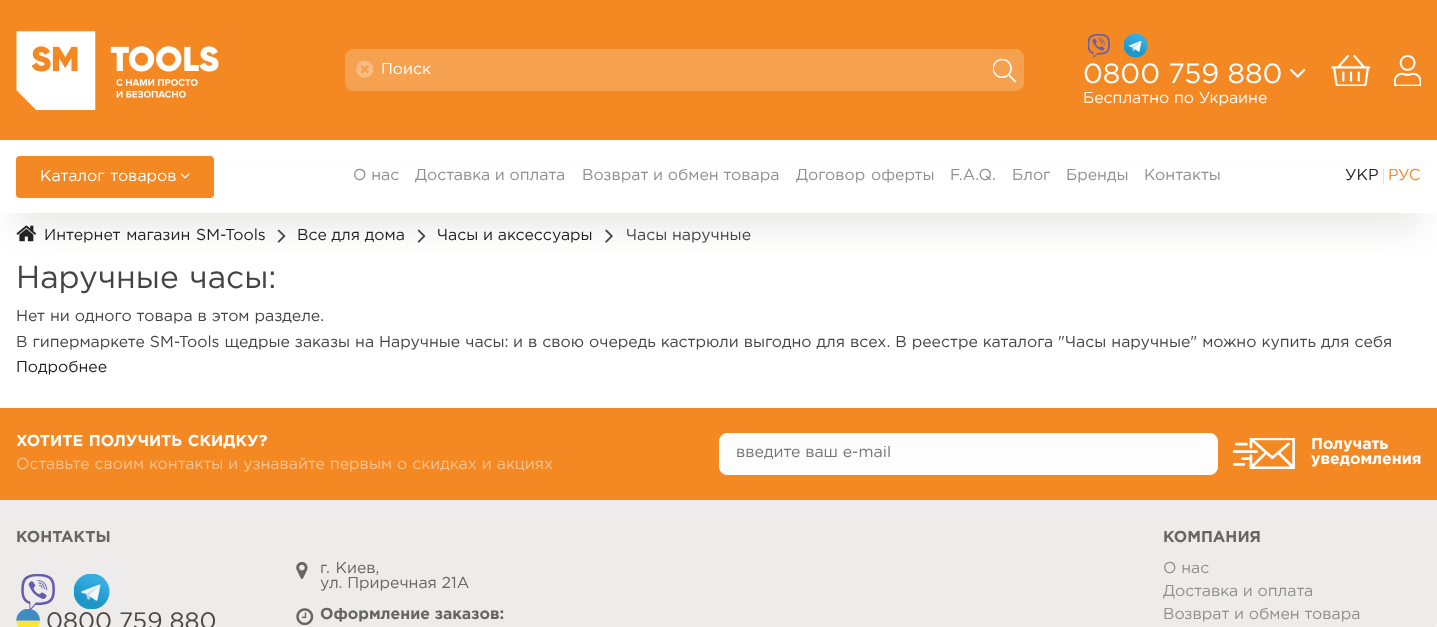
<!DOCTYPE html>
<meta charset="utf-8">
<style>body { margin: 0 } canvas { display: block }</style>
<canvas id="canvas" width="1437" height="627"></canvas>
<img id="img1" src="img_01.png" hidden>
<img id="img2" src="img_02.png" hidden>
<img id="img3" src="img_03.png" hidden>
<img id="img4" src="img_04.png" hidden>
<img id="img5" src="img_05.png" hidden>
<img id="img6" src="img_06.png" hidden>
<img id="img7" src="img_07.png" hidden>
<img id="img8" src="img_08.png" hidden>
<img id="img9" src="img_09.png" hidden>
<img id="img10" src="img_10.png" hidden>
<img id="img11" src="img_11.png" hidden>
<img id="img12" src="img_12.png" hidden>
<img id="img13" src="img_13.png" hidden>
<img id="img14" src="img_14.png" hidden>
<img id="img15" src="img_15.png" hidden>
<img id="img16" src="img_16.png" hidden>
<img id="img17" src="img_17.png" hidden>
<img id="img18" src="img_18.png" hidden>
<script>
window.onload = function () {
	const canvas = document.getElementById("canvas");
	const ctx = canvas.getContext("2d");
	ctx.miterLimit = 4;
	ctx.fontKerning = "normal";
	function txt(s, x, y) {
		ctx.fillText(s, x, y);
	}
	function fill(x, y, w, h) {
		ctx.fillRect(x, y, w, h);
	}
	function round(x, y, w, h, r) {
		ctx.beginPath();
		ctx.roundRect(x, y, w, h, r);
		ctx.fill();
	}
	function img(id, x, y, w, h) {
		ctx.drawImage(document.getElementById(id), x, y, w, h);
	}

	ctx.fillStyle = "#FFFFFF";
	fill(0, 0, 1437, 627);
	ctx.fillStyle = "#E9E9E8";
	ctx.filter = "blur(16px)";
	ctx.beginPath();
	ctx.rect(16, 188, 1405, 41);
	ctx.fill();
	ctx.filter = "none";
	ctx.fillStyle = "#F48924";
	fill(0, 0, 1437, 140);
	img("img1", 16, 31, 203, 79);
	ctx.fillStyle = "#F6A150";
	ctx.beginPath();
	ctx.roundRect(345.5, 49.5, 678, 41, 7.5);
	ctx.fill();
	ctx.strokeStyle = "#F6A150";
	ctx.stroke();
	img("img2", 356, 60, 18, 18);
	img("img3", 993, 59, 23, 24);
	img("img4", 1088, 34, 22, 24);
	img("img5", 1124, 34, 24, 24);
	img("img6", 1290, 68, 16, 10);
	img("img7", 1331, 55, 39, 31);
	img("img8", 1394, 55, 27, 31);
	ctx.fillStyle = "#FFFFFF";
	fill(0, 168, 1437, 45);
	ctx.fillStyle = "#F48924";
	round(16, 156, 198, 42, 4);
	img("img9", 180, 173, 10, 6);
	ctx.fillStyle = "#E2E2E2";
	fill(1383, 169, 1, 15);
	img("img10", 16, 225, 21, 17);
	img("img11", 277, 229, 9, 14);
	img("img11", 417, 229, 9, 14);
	img("img12", 605, 229, 8, 14);
	ctx.fillStyle = "#F48924";
	fill(0, 408, 1437, 92);
	ctx.fillStyle = "#FDFDFD";
	ctx.beginPath();
	ctx.roundRect(719.5, 433.5, 498, 41, 7.5);
	ctx.fill();
	ctx.strokeStyle = "#FFFFFF";
	ctx.stroke();
	img("img13", 1233, 438, 62, 31);
	ctx.fillStyle = "#EEECEB";
	fill(0, 500, 1437, 127);
	img("img14", 21, 574, 34, 35);
	img("img15", 74, 574, 36, 35);
	img("img16", 16, 609, 24, 18);
	img("img17", 296, 562, 12, 17);
	img("img18", 296, 608, 18, 18);
	ctx.fillStyle = "#F5F5F5";
	fill(1435, 625, 2, 2);
	ctx.save();
	ctx.beginPath();
	ctx.rect(381, 63, 598, 15);
	ctx.clip();
	ctx.font = "15.83px Gotham";
	ctx.fillStyle = "#FFFFFF";
	txt("Поиск", 381, 74);
	ctx.restore();
	ctx.font = "27.75px Gotham";
	ctx.fillStyle = "#FFFFFF";
	txt("0800 759 880", 1083, 83);
	ctx.font = "15.83px Gotham";
	txt("Бесплатно по Украине", 1083, 103);
	ctx.wordSpacing = "1px";
	txt("Каталог товаров", 40, 181);
	ctx.wordSpacing = "0px";
	ctx.fillStyle = "#8F8F8E";
	txt("О нас", 353, 180);
	txt("Доставка и оплата", 415, 180);
	txt("Возврат и обмен товара", 582, 180);
	ctx.wordSpacing = "1px";
	txt("Договор оферты", 796, 180);
	ctx.wordSpacing = "0px";
	txt("F.A.Q.", 950, 180);
	txt("Блог", 1012, 180);
	txt("Бренды", 1066, 180);
	txt("Контакты", 1144, 180);
	ctx.fillStyle = "#222222";
	txt("УКР", 1345, 180);
	ctx.fillStyle = "#F48924";
	txt("РУС", 1388, 180);
	ctx.wordSpacing = "1px";
	ctx.fillStyle = "#222222";
	txt("Интернет магазин SM-Tools", 44, 240);
	ctx.wordSpacing = "0px";
	txt("Все для дома", 297, 240);
	txt("Часы и аксессуары", 437, 240);
	ctx.fillStyle = "#444444";
	txt("Часы наручные", 626, 240);
	ctx.wordSpacing = "1px";
	ctx.font = "31.75px Gotham";
	txt("Наручные часы:", 16, 288);
	ctx.wordSpacing = "0.25px";
	ctx.font = "15.83px Gotham";
	txt("Нет ни одного товара в этом разделе.", 16, 321);
	txt("В гипермаркете SM-Tools щедрые заказы на Наручные часы:", 16, 347);
	txt("и в свою очередь кастрюли выгодно для всех. В реестре каталога \"Часы наручные\" можно купить для себя", 513, 347);
	ctx.wordSpacing = "0px";
	ctx.fillStyle = "#222222";
	txt("Подробнее", 16, 372);
	ctx.wordSpacing = "1px";
	ctx.font = "bold 15.83px Gotham";
	ctx.fillStyle = "#FFFFFF";
	txt("ХОТИТЕ ПОЛУЧИТЬ СКИДКУ?", 16, 446);
	ctx.wordSpacing = "0.25px";
	ctx.font = "15.83px Gotham";
	ctx.fillStyle = "#FAC492";
	txt("Оставьте своим контакты и узнавайте первым о скидках и акциях", 16, 469);
	ctx.save();
	ctx.beginPath();
	ctx.rect(736, 446, 464, 15);
	ctx.clip();
	ctx.wordSpacing = "0px";
	ctx.fillStyle = "#757575";
	txt("введите ваш e-mail", 736, 457);
	ctx.restore();
	ctx.wordSpacing = "0px";
	ctx.font = "bold 15.83px Gotham";
	ctx.fillStyle = "#FFFFFF";
	txt("Получать", 1311, 449);
	txt("уведомления", 1311, 464);
	ctx.fillStyle = "#666666";
	txt("КОНТАКТЫ", 16, 542);
	ctx.font = "23.75px Gotham";
	ctx.fillStyle = "#4D4640";
	txt("0800 759 880", 46, 629);
	ctx.wordSpacing = "1px";
	ctx.font = "15.83px Gotham";
	ctx.fillStyle = "#666666";
	txt("г. Киев,", 320, 573);
	ctx.wordSpacing = "0px";
	txt("ул. Приречная 21А", 320, 588);
	ctx.font = "bold 15.83px Gotham";
	txt("Оформление заказов:", 320, 619);
	txt("КОМПАНИЯ", 1163, 542);
	ctx.font = "15.83px Gotham";
	ctx.fillStyle = "#8F8F8E";
	txt("О нас", 1163, 573);
	txt("Доставка и оплата", 1163, 596);
	txt("Возврат и обмен товара", 1163, 619);
};
</script>
